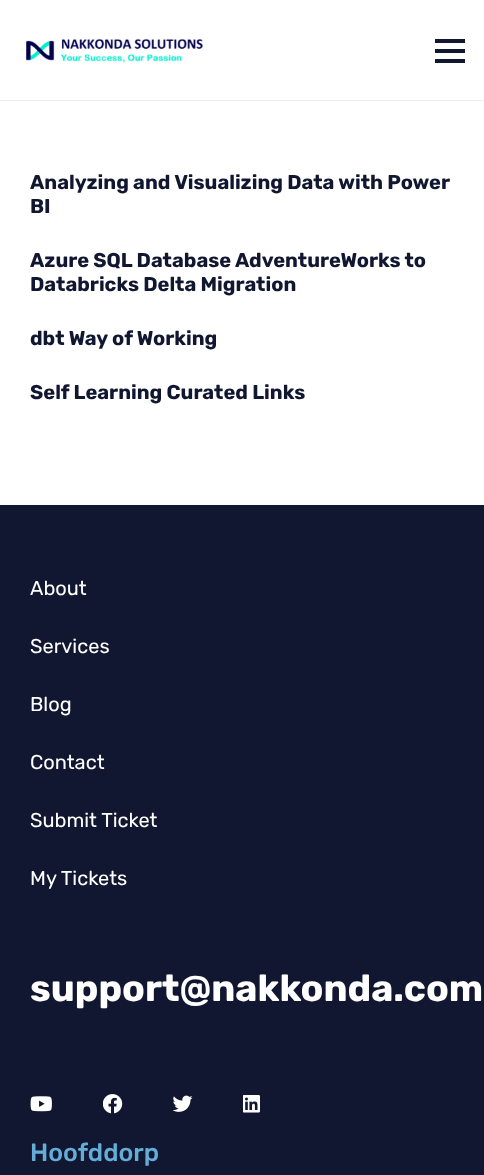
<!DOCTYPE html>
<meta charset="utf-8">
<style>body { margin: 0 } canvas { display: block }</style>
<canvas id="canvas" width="484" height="1175"></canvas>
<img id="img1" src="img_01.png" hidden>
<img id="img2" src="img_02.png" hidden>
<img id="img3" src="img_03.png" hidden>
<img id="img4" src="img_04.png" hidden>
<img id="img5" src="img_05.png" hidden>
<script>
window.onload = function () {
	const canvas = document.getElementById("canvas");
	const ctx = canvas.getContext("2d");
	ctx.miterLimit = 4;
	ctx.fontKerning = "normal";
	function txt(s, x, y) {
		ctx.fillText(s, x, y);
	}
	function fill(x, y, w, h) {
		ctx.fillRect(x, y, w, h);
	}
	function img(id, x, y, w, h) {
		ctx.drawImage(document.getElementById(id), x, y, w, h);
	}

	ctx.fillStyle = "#FFFFFF";
	fill(0, 0, 484, 1175);
	ctx.fillStyle = "#EBEBEB";
	fill(0, 100, 484, 1);
	img("img1", 26, 38, 178, 25);
	ctx.fillStyle = "#111731";
	fill(435, 49, 30, 4);
	fill(435, 39, 30, 4);
	fill(435, 59, 30, 4);
	fill(0, 505, 484, 670);
	img("img2", 30, 1096, 22, 16);
	img("img3", 103, 1094, 20, 20);
	img("img4", 173, 1095, 20, 17);
	img("img5", 243, 1095, 17, 18);
	ctx.font = "bold 20px Rubik";
	txt("Analyzing and Visualizing Data with Power", 30, 189);
	txt("BI", 30, 213);
	txt("Azure SQL Database AdventureWorks to", 30, 267);
	txt("Databricks Delta Migration", 30, 291);
	txt("dbt Way of Working", 30, 345);
	txt("Self Learning Curated Links", 30, 399);
	ctx.font = "20px Rubik";
	ctx.fillStyle = "#FFFFFF";
	txt("About", 30, 595);
	txt("Services", 30, 653);
	txt("Blog", 30, 711);
	txt("Contact", 30, 769);
	txt("Submit Ticket", 30, 827);
	txt("My Tickets", 30, 885);
	ctx.font = "bold 37.5px Rubik";
	txt("support@nakkonda.com", 30, 1001);
	ctx.font = "500 25px Rubik";
	ctx.fillStyle = "#63ADD7";
	txt("Hoofddorp", 30, 1161);
};
</script>
